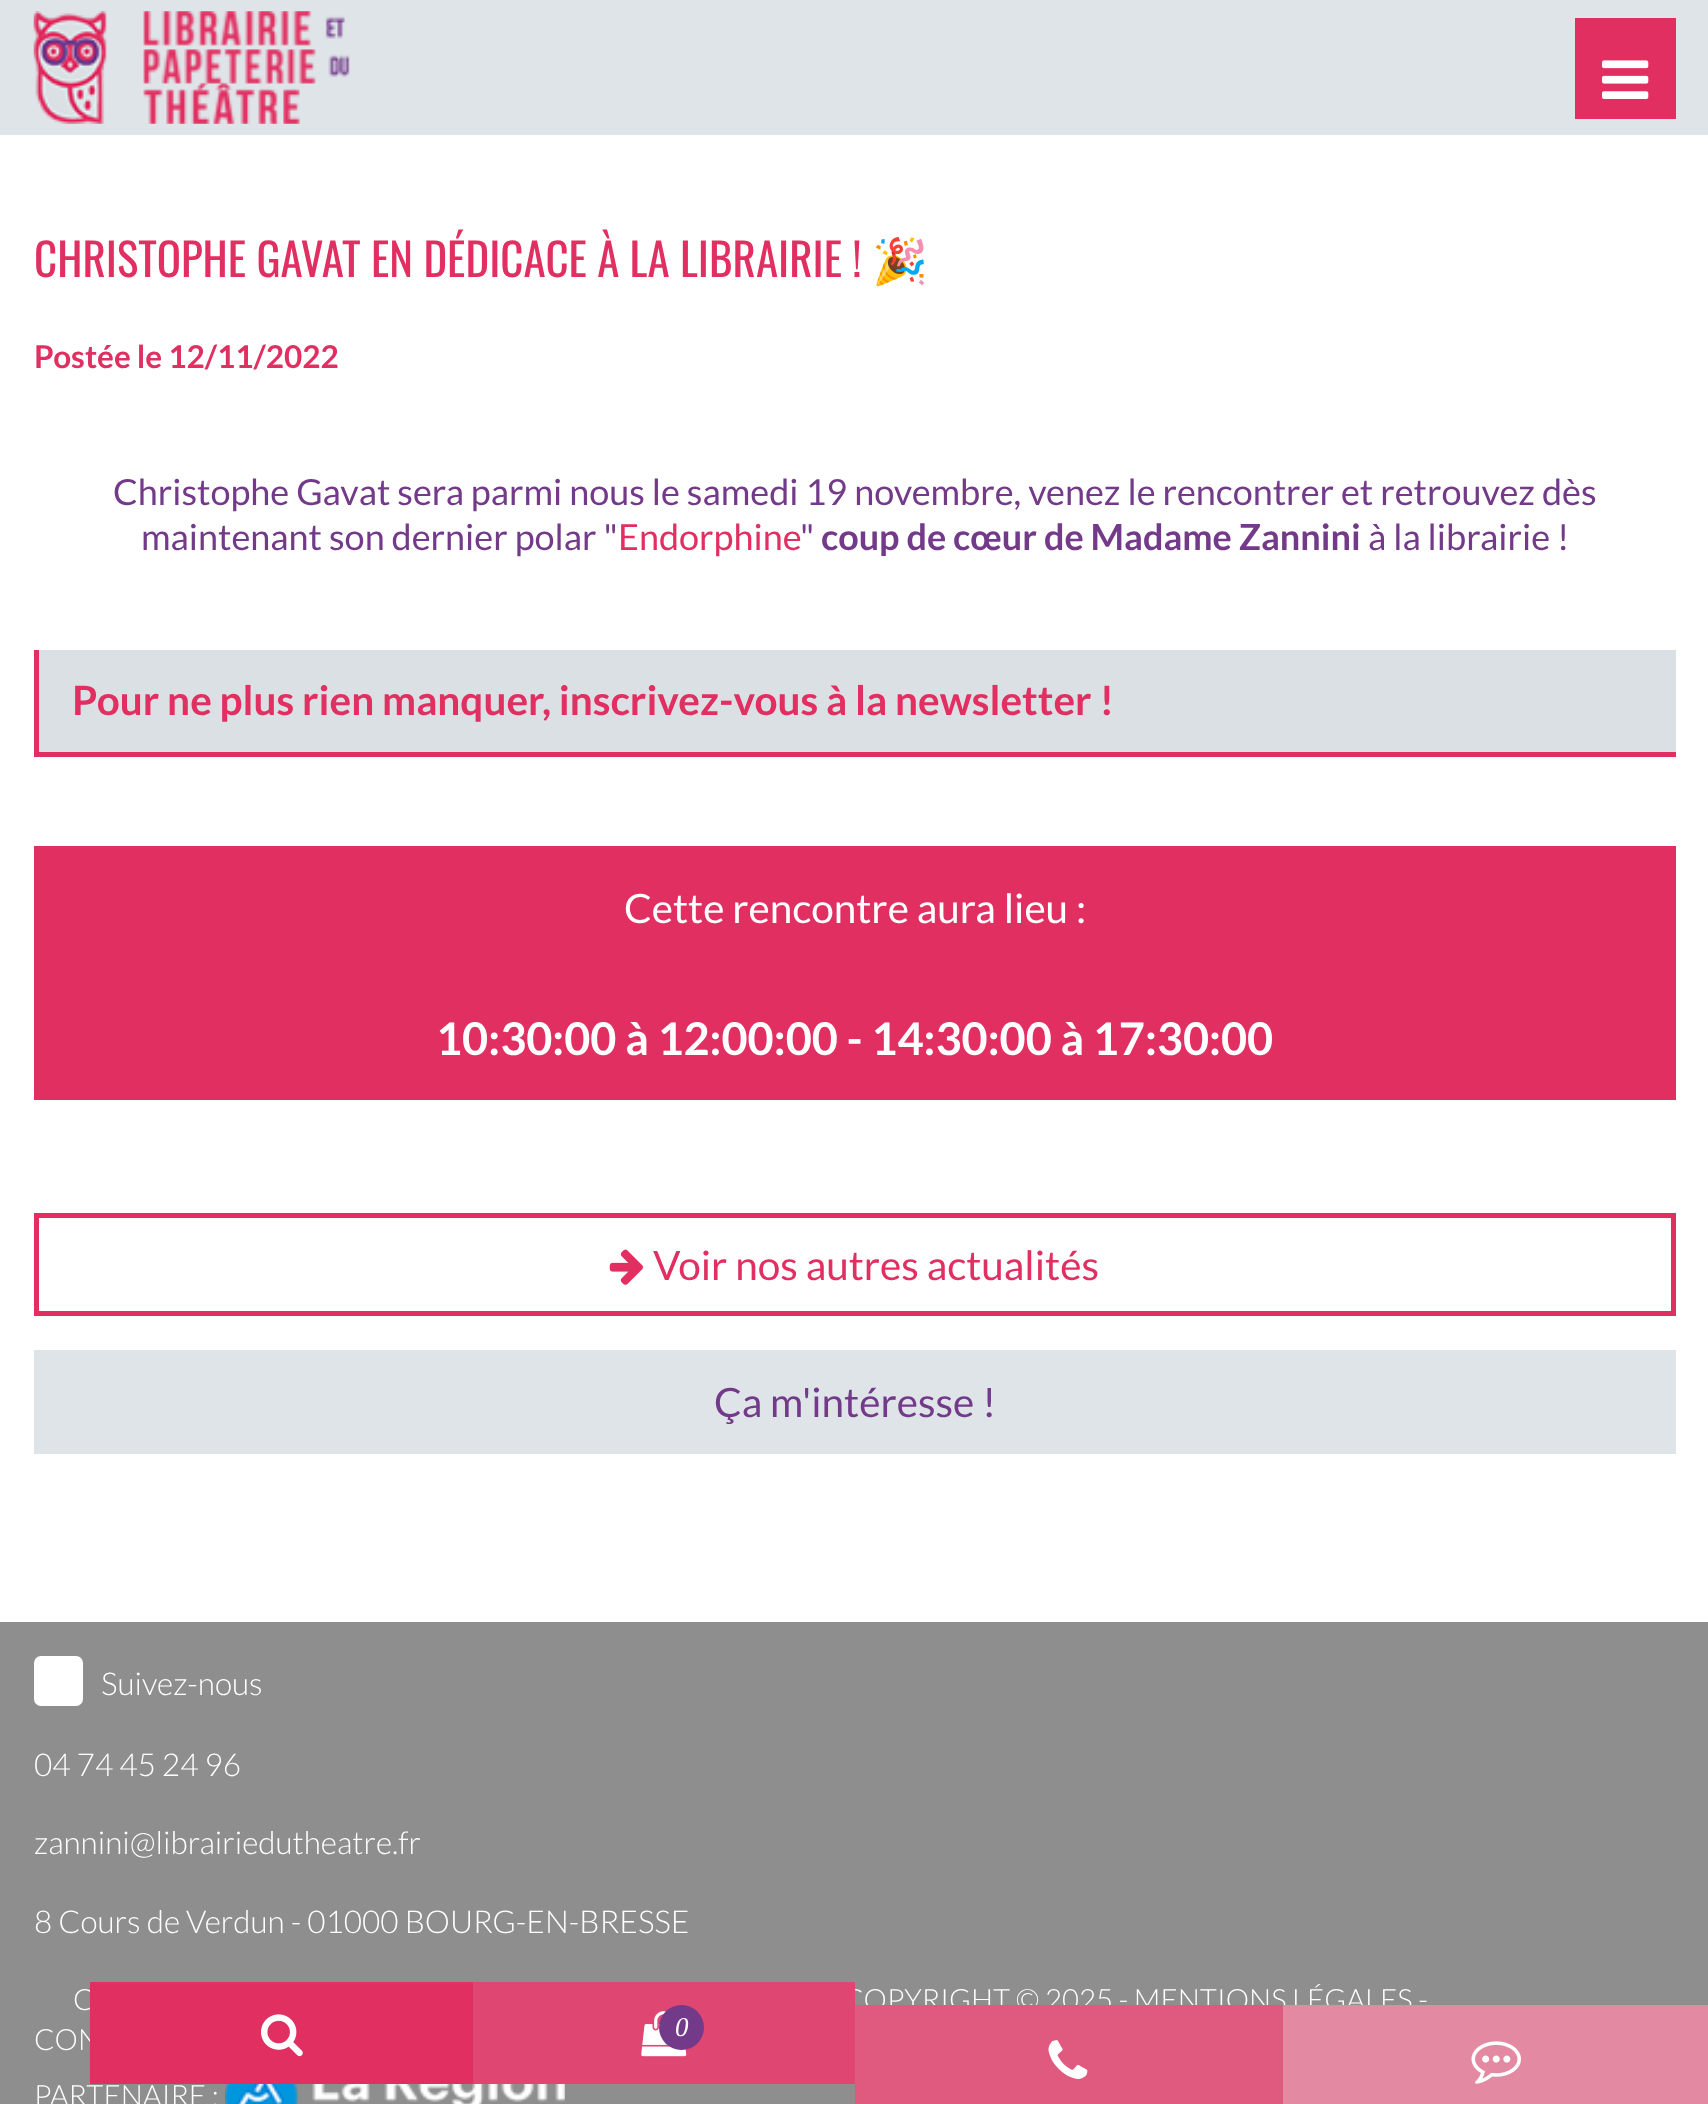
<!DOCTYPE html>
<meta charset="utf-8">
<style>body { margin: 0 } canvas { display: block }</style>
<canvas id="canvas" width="1708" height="2104"></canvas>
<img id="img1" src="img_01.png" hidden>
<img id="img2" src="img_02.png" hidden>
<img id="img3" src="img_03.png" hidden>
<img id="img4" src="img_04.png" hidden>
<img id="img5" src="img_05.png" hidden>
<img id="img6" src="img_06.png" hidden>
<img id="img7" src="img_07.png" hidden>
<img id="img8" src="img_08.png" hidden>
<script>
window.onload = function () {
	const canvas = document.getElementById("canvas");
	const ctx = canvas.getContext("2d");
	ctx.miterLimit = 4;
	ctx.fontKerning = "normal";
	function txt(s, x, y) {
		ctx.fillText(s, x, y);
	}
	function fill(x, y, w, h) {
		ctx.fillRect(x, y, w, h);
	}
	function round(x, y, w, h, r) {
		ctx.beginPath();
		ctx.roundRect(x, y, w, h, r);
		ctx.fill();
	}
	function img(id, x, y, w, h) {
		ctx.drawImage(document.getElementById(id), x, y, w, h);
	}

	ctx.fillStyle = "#FFFFFF";
	fill(0, 0, 1708, 2104);
	ctx.fillStyle = "#DBE0E4";
	fill(39, 650, 1637, 102);
	ctx.fillStyle = "#E12F61";
	fill(34, 752, 1642, 5);
	fill(34, 650, 5, 106);
	fill(34, 846, 1642, 254);
	ctx.strokeStyle = "#E12F61";
	ctx.lineWidth = 5;
	ctx.strokeRect(36.5, 1215.5, 1637, 98);
	img("img1", 609, 1249, 34, 36);
	ctx.fillStyle = "#DEE4E8";
	fill(34, 1350, 1642, 104);
	ctx.fillStyle = "#8E8E8E";
	fill(0, 1622, 1708, 482);
	ctx.fillStyle = "#FFFFFF";
	round(34, 1656, 49, 50, 7);
	img("img2", 225, 2084, 340, 20);
	ctx.fillStyle = "#DEE4E8";
	fill(0, 0, 1708, 135);
	ctx.fillStyle = "#E12F61";
	fill(1575, 18, 101, 101);
	img("img3", 1602, 60, 47, 39);
	img("img4", 33, 11, 317, 113);
	ctx.font = "45px Oswald";
	txt("CHRISTOPHE GAVAT EN DÉDICACE À LA LIBRAIRIE !", 34, 277);
	ctx.font = "45px Noto Color Emoji";
	txt("🎉", 872, 277);
	ctx.font = "bold 31.5px Lato";
	txt("Postée le 12/11/2022", 34, 368);
	ctx.font = "36px Lato";
	ctx.fillStyle = "#733A8A";
	txt("Christophe Gavat sera parmi nous le samedi 19 novembre, venez le rencontrer et retrouvez dès", 113, 505);
	txt("maintenant son dernier polar \"", 141, 550);
	ctx.fillStyle = "#E12F61";
	txt("Endorphine", 618, 550);
	ctx.fillStyle = "#733A8A";
	txt("\"", 800, 550);
	ctx.font = "bold 36px Lato";
	txt("coup de cœur de Madame Zannini", 821, 550);
	ctx.font = "36px Lato";
	txt("à la librairie !", 1368, 550);
	ctx.font = "bold 40.5px Lato";
	ctx.fillStyle = "#E12F61";
	txt("Pour ne plus rien manquer, inscrivez-vous à la newsletter !", 72, 715);
	ctx.font = "40.5px Lato";
	ctx.fillStyle = "#FFFFFF";
	txt("Cette rencontre aura lieu :", 624, 923);
	ctx.font = "bold 45px Lato";
	txt("10:30:00 à 12:00:00 - 14:30:00 à 17:30:00", 436, 1055);
	ctx.font = "40.5px Lato";
	ctx.fillStyle = "#E12F61";
	txt("Voir nos autres actualités", 653, 1280);
	ctx.fillStyle = "#733A8A";
	txt("Ça m'intéresse !", 714, 1417);
	ctx.font = "300 31.5px Lato";
	ctx.fillStyle = "#FFFFFF";
	txt("Suivez-nous", 101, 1695);
	txt("04 74 45 24 96", 34, 1776);
	txt("zannini@librairiedutheatre.fr", 34, 1854);
	txt("8 Cours de Verdun - 01000 BOURG-EN-BRESSE", 34, 1933);
	ctx.font = "300 29.25px Lato";
	txt("C", 73, 2010);
	txt("COPYRIGHT © 2025 - MENTIONS LÉGALES -", 843, 2010);
	txt("CON", 34, 2050);
	txt("PARTENAIRE :", 34, 2106);
	ctx.fillStyle = "#E12F61";
	fill(90, 1982, 383, 102);
	img("img5", 261, 2014, 42, 43);
	ctx.fillStyle = "#DF4671";
	fill(473, 1982, 382, 102);
	img("img6", 641, 2011, 46, 46);
	ctx.fillStyle = "#733A8A";
	ctx.beginPath();
	ctx.arc(681.5, 2027.5, 22.5, 0, Math.PI * 2);
	ctx.fill();
	ctx.font = "italic 27px Liberation Serif";
	ctx.fillStyle = "#FFFFFF";
	txt("0", 675, 2036);
	ctx.fillStyle = "#E0597F";
	fill(855, 2005, 428, 99);
	img("img7", 1048, 2040, 40, 39);
	ctx.fillStyle = "#E489A2";
	fill(1283, 2005, 425, 99);
	img("img8", 1471, 2041, 50, 43);
};
</script>
